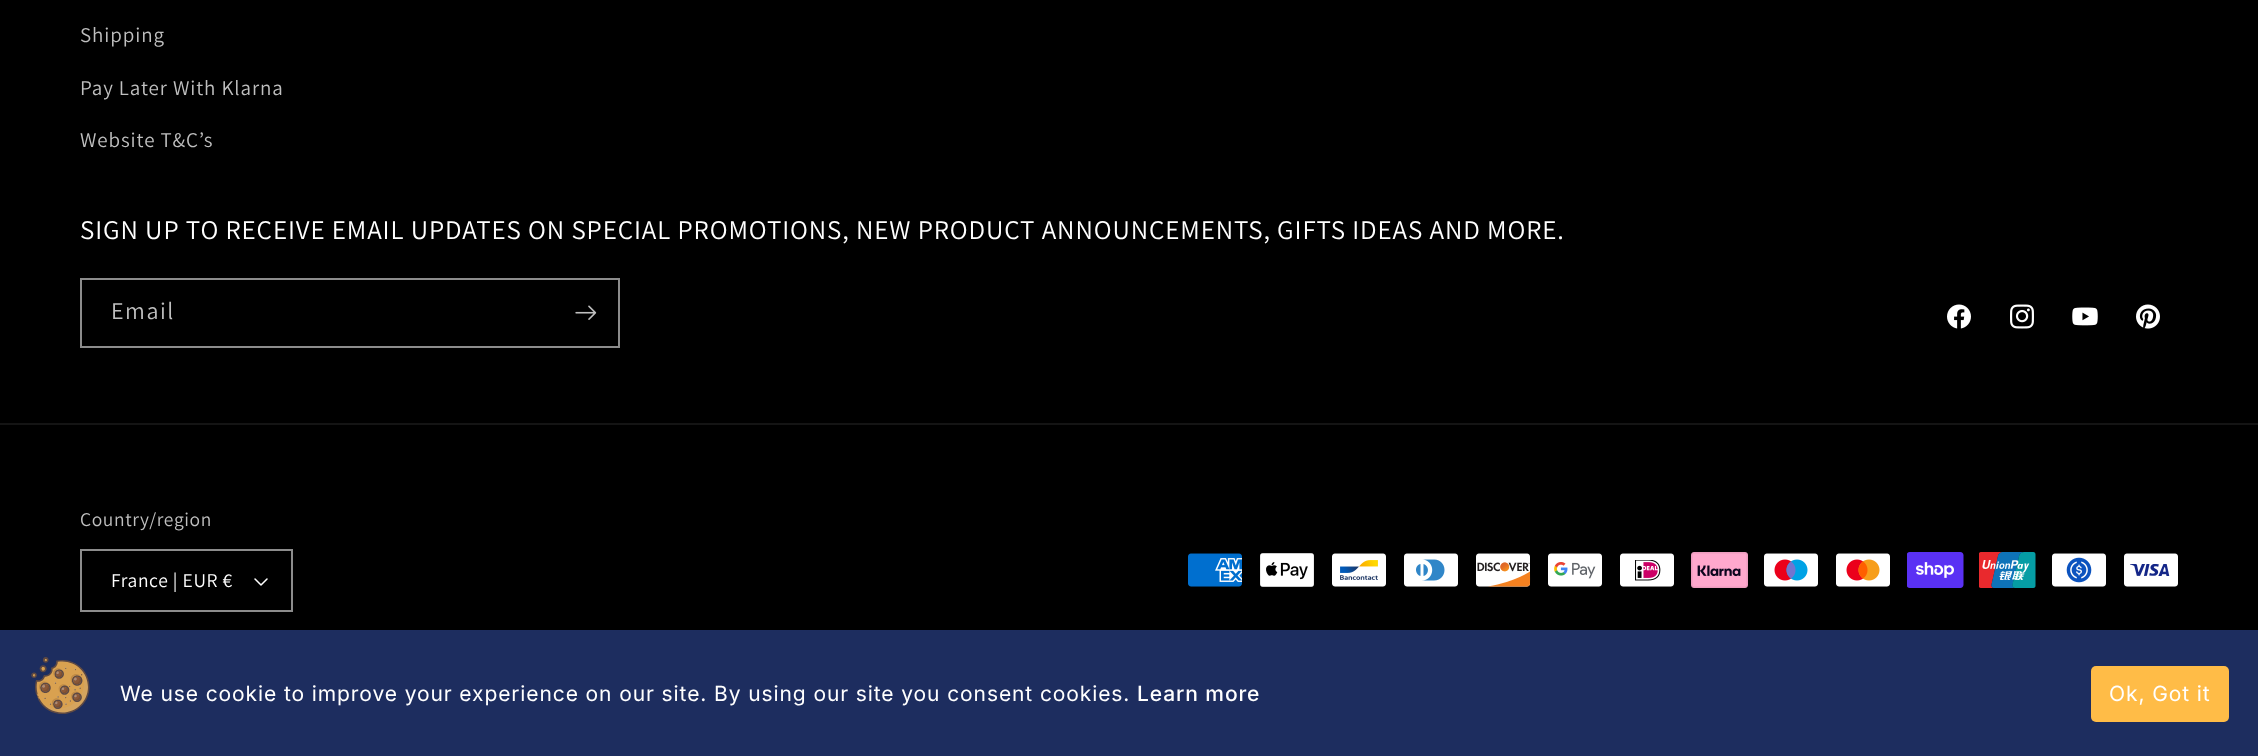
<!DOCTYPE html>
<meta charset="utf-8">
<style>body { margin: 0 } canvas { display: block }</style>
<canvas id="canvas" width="2258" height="756"></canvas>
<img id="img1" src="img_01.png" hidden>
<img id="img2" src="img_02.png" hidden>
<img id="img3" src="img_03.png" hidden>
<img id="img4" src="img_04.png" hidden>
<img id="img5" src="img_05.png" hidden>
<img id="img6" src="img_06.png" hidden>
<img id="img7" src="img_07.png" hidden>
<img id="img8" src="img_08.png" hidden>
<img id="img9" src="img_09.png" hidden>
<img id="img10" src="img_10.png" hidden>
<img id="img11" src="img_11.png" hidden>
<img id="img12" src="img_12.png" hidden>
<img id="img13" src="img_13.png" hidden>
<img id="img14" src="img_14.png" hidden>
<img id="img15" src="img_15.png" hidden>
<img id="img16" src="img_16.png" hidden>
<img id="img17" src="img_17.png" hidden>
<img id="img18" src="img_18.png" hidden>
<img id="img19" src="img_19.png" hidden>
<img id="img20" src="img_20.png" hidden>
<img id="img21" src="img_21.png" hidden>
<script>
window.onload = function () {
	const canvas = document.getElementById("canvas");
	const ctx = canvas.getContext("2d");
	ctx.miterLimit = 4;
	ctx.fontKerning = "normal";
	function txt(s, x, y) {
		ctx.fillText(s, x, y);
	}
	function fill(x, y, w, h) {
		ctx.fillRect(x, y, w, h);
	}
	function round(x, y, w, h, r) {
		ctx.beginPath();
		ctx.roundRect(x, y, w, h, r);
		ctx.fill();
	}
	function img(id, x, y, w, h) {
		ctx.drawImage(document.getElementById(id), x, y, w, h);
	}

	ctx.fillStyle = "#000000";
	fill(0, 0, 2258, 756);
	ctx.strokeStyle = "#8C8C8C";
	ctx.lineWidth = 2;
	ctx.strokeRect(81, 279, 538, 68);
	img("img1", 575, 305, 22, 15);
	img("img2", 1947, 304, 24, 25);
	img("img3", 2010, 304, 24, 25);
	img("img4", 2072, 307, 26, 19);
	img("img5", 2136, 304, 24, 25);
	ctx.fillStyle = "#141414";
	fill(0, 423, 2258, 2);
	img("img6", 254, 578, 14, 8);
	ctx.strokeRect(81, 550, 211, 61);
	img("img7", 1188, 553, 54, 34);
	img("img8", 1260, 553, 54, 34);
	img("img9", 1332, 553, 54, 34);
	img("img10", 1404, 553, 54, 34);
	img("img11", 1476, 553, 55, 34);
	img("img12", 1548, 553, 54, 34);
	img("img13", 1620, 553, 54, 34);
	img("img14", 1691, 552, 57, 36);
	img("img15", 1764, 553, 54, 34);
	img("img16", 1836, 553, 54, 34);
	img("img17", 1907, 552, 57, 36);
	img("img18", 1979, 552, 57, 36);
	img("img19", 2052, 553, 54, 34);
	img("img20", 2124, 553, 54, 34);
	ctx.fillStyle = "#1D2D5F";
	fill(0, 630, 2258, 126);
	img("img21", 31, 657, 59, 57);
	ctx.fillStyle = "#FFBC47";
	round(2091, 666, 138, 56, 5);
	ctx.letterSpacing = "0.9px";
	ctx.font = "21px Assistant";
	ctx.fillStyle = "#BFBFBF";
	txt("Shipping", 80, 42);
	txt("Pay Later With Klarna", 80, 95);
	txt("Website T&C’s", 80, 147);
	ctx.font = "27px Assistant";
	ctx.fillStyle = "#FFFFFF";
	txt("SIGN UP TO RECEIVE EMAIL UPDATES ON SPECIAL PROMOTIONS, NEW PRODUCT ANNOUNCEMENTS, GIFTS IDEAS AND MORE.", 80, 239);
	ctx.letterSpacing = "1.5px";
	ctx.font = "24px Assistant";
	ctx.fillStyle = "#BFBFBF";
	txt("Email", 111, 319);
	ctx.letterSpacing = "0.6px";
	ctx.font = "19.5px Assistant";
	txt("Country/region", 80, 526);
	ctx.fillStyle = "#FFFFFF";
	txt("France | EUR €", 111, 587);
	ctx.letterSpacing = "0.9px";
	ctx.font = "21px Inter";
	txt("We use cookie to improve your experience on our site. By using our site you consent cookies.", 120, 701);
	ctx.font = "500 21px Inter";
	txt("Learn more", 1137, 701);
	ctx.font = "21px Inter";
	txt("Ok, Got it", 2109, 701);
};
</script>
